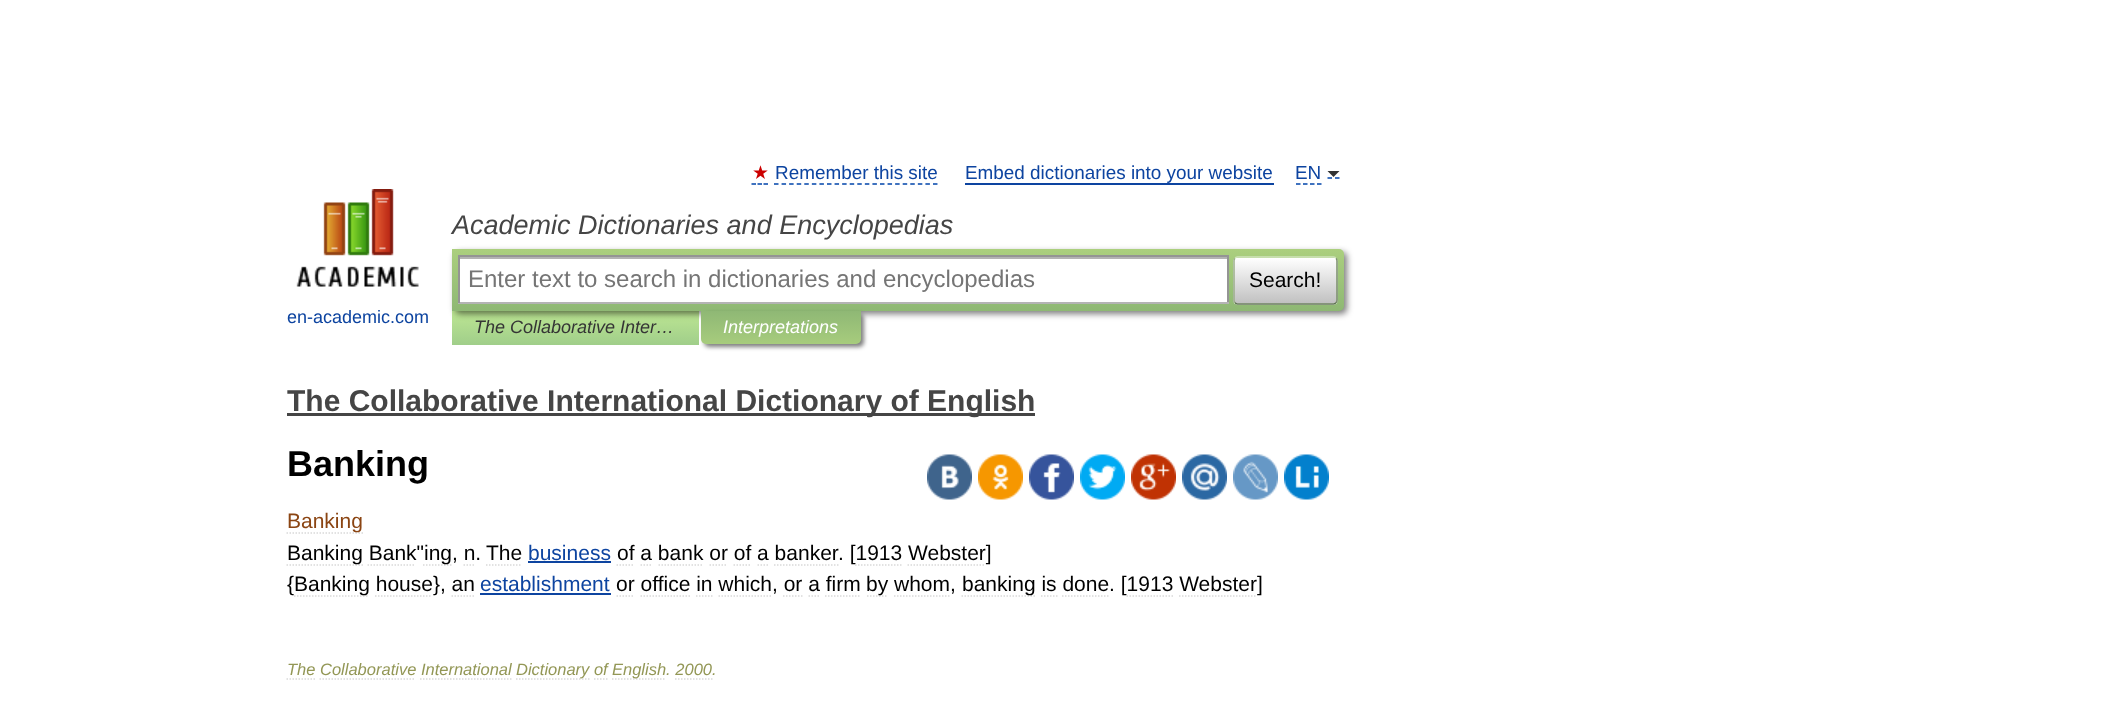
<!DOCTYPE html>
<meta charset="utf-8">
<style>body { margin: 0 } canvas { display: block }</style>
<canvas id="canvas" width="2103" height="708"></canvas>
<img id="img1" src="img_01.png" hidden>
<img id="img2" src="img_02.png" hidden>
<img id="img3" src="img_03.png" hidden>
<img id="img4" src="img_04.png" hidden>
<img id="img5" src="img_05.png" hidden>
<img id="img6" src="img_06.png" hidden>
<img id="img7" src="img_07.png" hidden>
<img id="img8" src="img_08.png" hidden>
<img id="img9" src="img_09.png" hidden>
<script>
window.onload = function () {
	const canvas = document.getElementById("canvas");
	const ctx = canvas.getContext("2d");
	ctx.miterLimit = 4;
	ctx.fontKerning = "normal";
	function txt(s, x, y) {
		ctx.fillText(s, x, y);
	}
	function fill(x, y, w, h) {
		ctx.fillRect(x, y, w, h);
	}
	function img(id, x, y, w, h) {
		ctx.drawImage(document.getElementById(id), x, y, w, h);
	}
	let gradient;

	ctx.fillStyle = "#FFFFFF";
	fill(0, 0, 2103, 708);
	ctx.beginPath();
	ctx.moveTo(751.5, 184);
	ctx.lineTo(756, 184);
	ctx.moveTo(757.5, 184);
	ctx.lineTo(762, 184);
	ctx.moveTo(763.5, 184);
	ctx.lineTo(768, 184);
	ctx.strokeStyle = "#0044AA";
	ctx.lineWidth = 1.5;
	ctx.stroke();
	ctx.beginPath();
	ctx.moveTo(774, 184);
	ctx.lineTo(937.5, 184);
	ctx.setLineDash([4.5, 3.07]);
	ctx.stroke();
	ctx.fillStyle = "#0D44A0";
	fill(965, 183, 309, 2);
	ctx.beginPath();
	ctx.moveTo(1296, 184);
	ctx.lineTo(1321.5, 184);
	ctx.setLineDash([4.5, 2.5]);
	ctx.stroke();
	ctx.beginPath();
	ctx.moveTo(1327.5, 178);
	ctx.lineTo(1332, 178);
	ctx.moveTo(1335, 178);
	ctx.lineTo(1339.5, 178);
	ctx.setLineDash([]);
	ctx.stroke();
	ctx.fillStyle = "#333333";
	ctx.beginPath();
	ctx.moveTo(1327.5, 171);
	ctx.lineTo(1339.5, 171);
	ctx.lineTo(1333.5, 177);
	ctx.closePath();
	ctx.fill();
	gradient = ctx.createLinearGradient(575, 311, 575, 345);
	gradient.addColorStop(0, "#BDE693");
	gradient.addColorStop(1, "#A0CE8A");
	ctx.fillStyle = gradient;
	fill(452, 311, 247, 34);
	ctx.fillStyle = "rgba(0, 0, 0, 0.5)";
	ctx.filter = "blur(3px)";
	ctx.beginPath();
	ctx.roundRect(455, 252, 892, 62, 5);
	ctx.fill();
	ctx.filter = "none";
	gradient = ctx.createLinearGradient(898, 249, 898, 311);
	gradient.addColorStop(0, "#ABCF7E");
	gradient.addColorStop(1, "#8EB874");
	ctx.fillStyle = gradient;
	ctx.beginPath();
	ctx.roundRect(452, 249, 892, 62, [0, 5, 5, 0]);
	ctx.fill();
	ctx.fillStyle = "#FFFFFF";
	fill(460, 259, 767, 43);
	ctx.fillStyle = "#B3B3B3";
	fill(459, 257, 768, 2);
	ctx.fillStyle = "#949494";
	fill(458, 255, 771, 2);
	fill(1227, 255, 2, 48);
	ctx.fillStyle = "#B4B4B4";
	fill(458, 302, 771, 2);
	ctx.fillStyle = "#949494";
	fill(458, 255, 2, 48);
	ctx.save();
	ctx.beginPath();
	ctx.roundRect(1233, 257, 105, 48, 5);
	ctx.clip();
	gradient = ctx.createLinearGradient(1286, 258, 1286, 303);
	gradient.addColorStop(0, "#FFFFFF");
	gradient.addColorStop(1, "#C1C1C1");
	ctx.fillStyle = gradient;
	fill(1233, 258, 105, 45);
	gradient = ctx.createLinearGradient(1286, 303, 1286, 348);
	gradient.addColorStop(0, "#FFFFFF");
	gradient.addColorStop(1, "#C1C1C1");
	ctx.fillStyle = gradient;
	fill(1233, 303, 105, 2);
	ctx.restore();
	ctx.beginPath();
	ctx.moveTo(1235, 258.5);
	ctx.bezierCurveTo(1235.5, 257.5, 1236.5, 257, 1237.5, 257);
	ctx.lineTo(1333.5, 257);
	ctx.bezierCurveTo(1334.5, 257, 1335.5, 257.5, 1336, 258.5);
	ctx.strokeStyle = "#D1E4BC";
	ctx.stroke();
	ctx.beginPath();
	ctx.moveTo(1336, 258.5);
	ctx.bezierCurveTo(1337, 259, 1337, 260, 1337, 261);
	ctx.lineTo(1337, 300);
	ctx.bezierCurveTo(1337, 301, 1337, 302, 1336, 302.5);
	ctx.strokeStyle = "#7A8E69";
	ctx.stroke();
	ctx.beginPath();
	ctx.moveTo(1336, 302.5);
	ctx.bezierCurveTo(1335.5, 303.5, 1334.5, 304, 1333.5, 304);
	ctx.lineTo(1237.5, 304);
	ctx.bezierCurveTo(1236.5, 304, 1235.5, 303.5, 1235, 302.5);
	ctx.strokeStyle = "#5D7250";
	ctx.stroke();
	ctx.beginPath();
	ctx.moveTo(1235, 302.5);
	ctx.bezierCurveTo(1234, 302, 1234, 301, 1234, 300);
	ctx.lineTo(1234, 261);
	ctx.bezierCurveTo(1234, 260, 1234, 259, 1235, 258.5);
	ctx.strokeStyle = "#9AAE89";
	ctx.stroke();
	img("img1", 296, 189, 123, 98);
	ctx.fillStyle = "rgba(0, 0, 0, 0.5)";
	ctx.filter = "blur(2px)";
	ctx.beginPath();
	ctx.roundRect(704, 314, 160, 33, 5);
	ctx.fill();
	ctx.filter = "none";
	gradient = ctx.createLinearGradient(781, 311, 781, 344);
	gradient.addColorStop(0, "#8FB875");
	gradient.addColorStop(1, "#A7CC7D");
	ctx.fillStyle = gradient;
	ctx.beginPath();
	ctx.roundRect(701, 311, 160, 33, [0, 0, 5, 5]);
	ctx.fill();
	ctx.fillStyle = "#454545";
	fill(287, 413, 748, 3);
	img("img2", 927, 454, 45, 46);
	img("img3", 978, 454, 45, 46);
	img("img4", 1029, 454, 45, 46);
	img("img5", 1080, 454, 45, 46);
	img("img6", 1131, 454, 45, 46);
	img("img7", 1182, 454, 45, 46);
	img("img8", 1233, 454, 45, 46);
	img("img9", 1284, 454, 45, 46);
	ctx.beginPath();
	ctx.moveTo(286.5, 533);
	ctx.lineTo(363, 533);
	ctx.strokeStyle = "#D9D9D9";
	ctx.setLineDash([1.5, 1.5]);
	ctx.stroke();
	ctx.beginPath();
	ctx.moveTo(286.5, 565);
	ctx.lineTo(363, 565);
	ctx.stroke();
	ctx.beginPath();
	ctx.moveTo(423, 565);
	ctx.lineTo(451.5, 565);
	ctx.stroke();
	ctx.fillStyle = "#0D44A0";
	fill(528, 561, 83, 2);
	ctx.beginPath();
	ctx.moveTo(616.5, 565);
	ctx.lineTo(634.5, 565);
	ctx.stroke();
	ctx.beginPath();
	ctx.moveTo(640.5, 565);
	ctx.lineTo(652.5, 565);
	ctx.moveTo(658.5, 565);
	ctx.lineTo(703.5, 565);
	ctx.stroke();
	ctx.beginPath();
	ctx.moveTo(709.5, 565);
	ctx.lineTo(727.5, 565);
	ctx.moveTo(733.5, 565);
	ctx.lineTo(751.5, 565);
	ctx.moveTo(757.5, 565);
	ctx.lineTo(769.5, 565);
	ctx.stroke();
	ctx.beginPath();
	ctx.moveTo(774, 565);
	ctx.lineTo(838.5, 565);
	ctx.stroke();
	ctx.beginPath();
	ctx.moveTo(294, 596);
	ctx.lineTo(369, 596);
	ctx.stroke();
	fill(480, 593, 131, 2);
	ctx.beginPath();
	ctx.moveTo(616.5, 596);
	ctx.lineTo(634.5, 596);
	ctx.stroke();
	ctx.beginPath();
	ctx.moveTo(961.5, 596);
	ctx.lineTo(1036.5, 596);
	ctx.stroke();
	ctx.beginPath();
	ctx.moveTo(640.5, 596);
	ctx.lineTo(690, 596);
	ctx.stroke();
	ctx.beginPath();
	ctx.moveTo(696, 596);
	ctx.lineTo(712.5, 596);
	ctx.stroke();
	ctx.beginPath();
	ctx.moveTo(718.5, 596);
	ctx.lineTo(772.5, 596);
	ctx.stroke();
	ctx.beginPath();
	ctx.moveTo(783, 596);
	ctx.lineTo(802.5, 596);
	ctx.moveTo(808.5, 596);
	ctx.lineTo(820.5, 596);
	ctx.stroke();
	ctx.beginPath();
	ctx.moveTo(825, 596);
	ctx.lineTo(861, 596);
	ctx.moveTo(867, 596);
	ctx.lineTo(888, 596);
	ctx.stroke();
	ctx.beginPath();
	ctx.moveTo(286.5, 679);
	ctx.lineTo(315, 679);
	ctx.stroke();
	ctx.beginPath();
	ctx.moveTo(319.5, 679);
	ctx.lineTo(415.5, 679);
	ctx.stroke();
	ctx.beginPath();
	ctx.moveTo(420, 679);
	ctx.lineTo(511.5, 679);
	ctx.stroke();
	ctx.beginPath();
	ctx.moveTo(516, 679);
	ctx.lineTo(589.5, 679);
	ctx.stroke();
	ctx.beginPath();
	ctx.moveTo(612, 679);
	ctx.lineTo(666, 679);
	ctx.stroke();
	ctx.font = "18.9px DejaVu Sans";
	ctx.fillStyle = "#CC0000";
	txt("★", 752, 179);
	ctx.font = "18.9px Liberation Sans";
	ctx.fillStyle = "#0D44A0";
	txt("Remember this site", 775, 179);
	txt("Embed dictionaries into your website", 965, 179);
	txt("EN", 1295, 179);
	ctx.font = "italic 27px Liberation Sans";
	ctx.fillStyle = "#454545";
	txt("Academic Dictionaries and Encyclopedias", 452, 234);
	ctx.font = "24px Liberation Sans";
	ctx.fillStyle = "#757575";
	txt("Enter text to search in dictionaries and encyclopedias", 468, 287);
	ctx.font = "21px Liberation Sans";
	ctx.fillStyle = "#000000";
	txt("Search!", 1249, 287);
	ctx.font = "18px Liberation Sans";
	ctx.fillStyle = "#0D44A0";
	txt("en-academic.com", 287, 323);
	ctx.font = "italic 18px Liberation Sans";
	ctx.fillStyle = "#353535";
	txt("The Collaborative Inter…", 474, 333);
	ctx.fillStyle = "#FFFFFF";
	txt("Interpretations", 723, 333);
	ctx.font = "bold 30px Liberation Sans";
	ctx.fillStyle = "#454545";
	txt("The Collaborative International Dictionary of English", 287, 411);
	ctx.font = "bold 36px Liberation Sans";
	ctx.fillStyle = "#000000";
	txt("Banking", 287, 476);
	ctx.font = "21px Liberation Sans";
	ctx.fillStyle = "#8B4513";
	txt("Banking", 287, 528);
	ctx.fillStyle = "#000000";
	txt("Banking Bank\"", 287, 560);
	txt("ing, n.", 424, 560);
	txt("The", 486, 560);
	ctx.fillStyle = "#0D44A0";
	txt("business", 528, 560);
	ctx.fillStyle = "#000000";
	txt("of a bank or of a banker", 617, 560);
	txt(". [1913 Webster]", 838, 560);
	ctx.beginPath();
	ctx.moveTo(367.5, 565);
	ctx.lineTo(415.5, 565);
	ctx.stroke();
	ctx.beginPath();
	ctx.moveTo(463.5, 565);
	ctx.lineTo(475.5, 565);
	ctx.moveTo(486, 565);
	ctx.lineTo(522, 565);
	ctx.stroke();
	ctx.beginPath();
	ctx.moveTo(855, 565);
	ctx.lineTo(901.5, 565);
	ctx.stroke();
	ctx.beginPath();
	ctx.moveTo(907.5, 565);
	ctx.lineTo(985.5, 565);
	ctx.stroke();
	txt("{", 287, 591);
	txt("Banking house}, an", 294, 591);
	ctx.fillStyle = "#0D44A0";
	txt("establishment", 480, 591);
	ctx.fillStyle = "#000000";
	txt("or office in which, or a firm", 616, 591);
	txt("by whom,", 866, 591);
	txt("banking is done. [1913 Webster]", 962, 591);
	ctx.beginPath();
	ctx.moveTo(375, 596);
	ctx.lineTo(432, 596);
	ctx.stroke();
	ctx.beginPath();
	ctx.moveTo(451.5, 596);
	ctx.lineTo(474, 596);
	ctx.stroke();
	ctx.beginPath();
	ctx.moveTo(894, 596);
	ctx.lineTo(951, 596);
	ctx.stroke();
	ctx.beginPath();
	ctx.moveTo(1041, 596);
	ctx.lineTo(1057.5, 596);
	ctx.stroke();
	ctx.beginPath();
	ctx.moveTo(1062, 596);
	ctx.lineTo(1110, 596);
	ctx.stroke();
	ctx.beginPath();
	ctx.moveTo(1126.5, 596);
	ctx.lineTo(1173, 596);
	ctx.stroke();
	ctx.beginPath();
	ctx.moveTo(1179, 596);
	ctx.lineTo(1257, 596);
	ctx.stroke();
	ctx.font = "italic 16.5px Liberation Sans";
	ctx.fillStyle = "#939756";
	txt("The Collaborative International", 287, 675);
	txt("Dictionary of", 516, 675);
	ctx.beginPath();
	ctx.moveTo(594, 679);
	ctx.lineTo(607.5, 679);
	ctx.stroke();
	txt("English. 2000.", 612, 675);
	ctx.beginPath();
	ctx.moveTo(675, 679);
	ctx.lineTo(712.5, 679);
	ctx.stroke();
};
</script>
